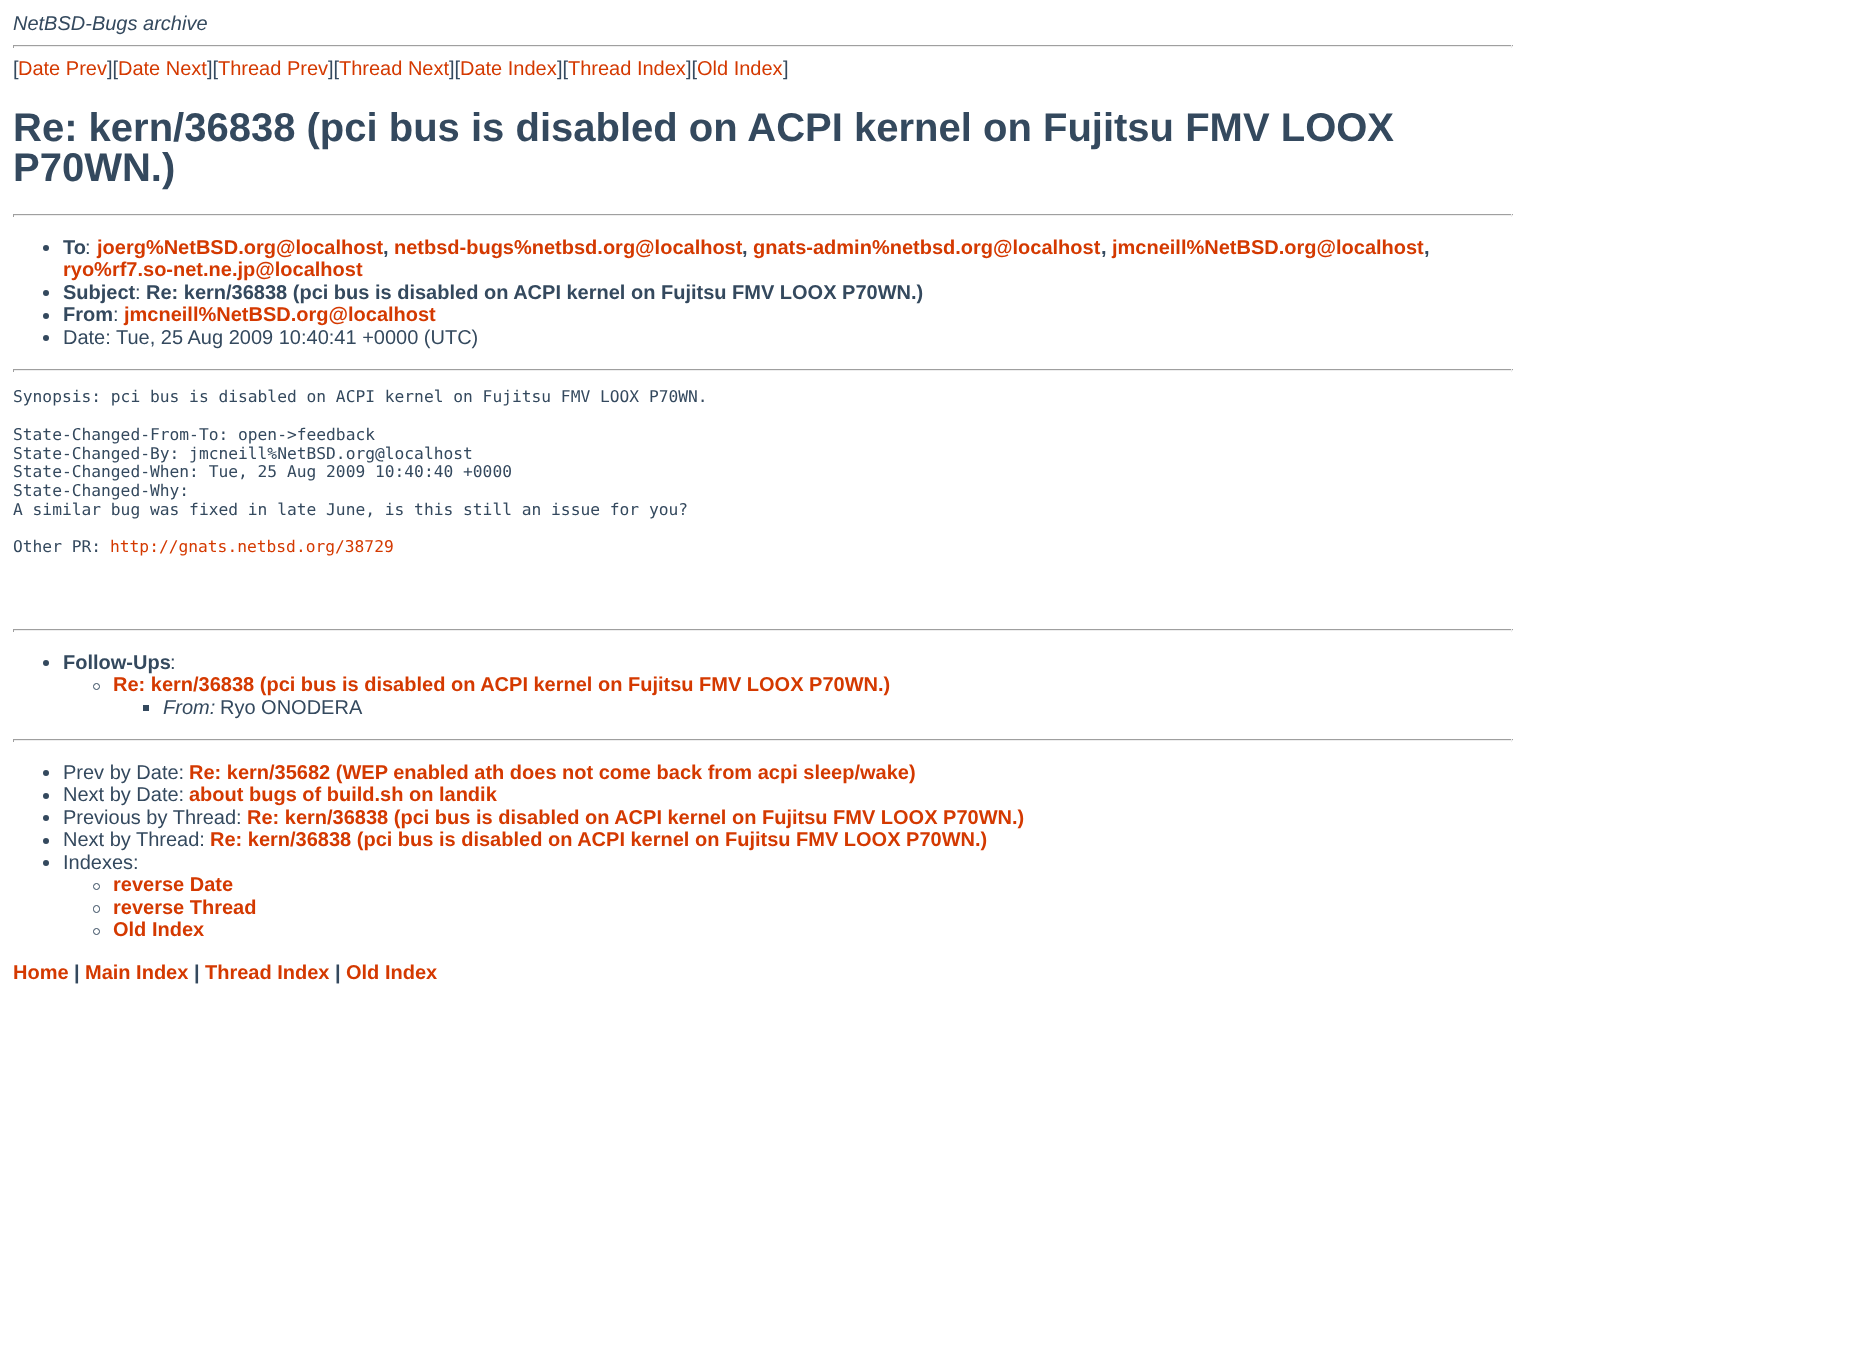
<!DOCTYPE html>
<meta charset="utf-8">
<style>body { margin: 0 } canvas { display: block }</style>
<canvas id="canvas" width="1868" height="1346"></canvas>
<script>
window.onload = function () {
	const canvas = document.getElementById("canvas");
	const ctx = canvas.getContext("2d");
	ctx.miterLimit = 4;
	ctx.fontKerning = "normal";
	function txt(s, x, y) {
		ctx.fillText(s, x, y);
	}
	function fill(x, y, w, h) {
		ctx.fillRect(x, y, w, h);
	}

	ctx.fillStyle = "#FFFFFF";
	fill(0, 0, 1868, 1346);
	ctx.fillStyle = "#9F9F9F";
	fill(13, 45, 1500, 1);
	ctx.fillStyle = "#EEEEEE";
	fill(1511, 45, 1, 3);
	fill(13, 46, 1500, 1);
	ctx.fillStyle = "#9F9F9F";
	fill(13, 45, 1, 3);
	fill(13, 214, 1500, 1);
	ctx.fillStyle = "#EEEEEE";
	fill(1511, 214, 1, 3);
	fill(13, 215, 1500, 1);
	ctx.fillStyle = "#9F9F9F";
	fill(13, 214, 1, 3);
	ctx.fillStyle = "#34495E";
	ctx.beginPath();
	ctx.arc(46, 248, 3, 0, Math.PI * 2);
	ctx.fill();
	ctx.beginPath();
	ctx.arc(46, 293, 3, 0, Math.PI * 2);
	ctx.fill();
	ctx.beginPath();
	ctx.arc(46, 316, 3, 0, Math.PI * 2);
	ctx.fill();
	ctx.beginPath();
	ctx.arc(46, 338, 3, 0, Math.PI * 2);
	ctx.fill();
	ctx.fillStyle = "#9F9F9F";
	fill(13, 369, 1500, 1);
	ctx.fillStyle = "#EEEEEE";
	fill(1511, 369, 1, 3);
	fill(13, 370, 1500, 1);
	ctx.fillStyle = "#9F9F9F";
	fill(13, 369, 1, 3);
	fill(13, 629, 1500, 1);
	ctx.fillStyle = "#EEEEEE";
	fill(1511, 629, 1, 3);
	fill(13, 630, 1500, 1);
	ctx.fillStyle = "#9F9F9F";
	fill(13, 629, 1, 3);
	ctx.fillStyle = "#34495E";
	ctx.beginPath();
	ctx.arc(46, 663, 3, 0, Math.PI * 2);
	ctx.fill();
	ctx.beginPath();
	ctx.arc(96.5, 686.5, 3, 0, Math.PI * 2);
	ctx.strokeStyle = "#34495E";
	ctx.stroke();
	fill(143, 705, 6, 6);
	ctx.fillStyle = "#9F9F9F";
	fill(13, 739, 1500, 1);
	ctx.fillStyle = "#EEEEEE";
	fill(1511, 739, 1, 3);
	fill(13, 740, 1500, 1);
	ctx.fillStyle = "#9F9F9F";
	fill(13, 739, 1, 3);
	ctx.fillStyle = "#34495E";
	ctx.beginPath();
	ctx.arc(46, 773, 3, 0, Math.PI * 2);
	ctx.fill();
	ctx.beginPath();
	ctx.arc(46, 796, 3, 0, Math.PI * 2);
	ctx.fill();
	ctx.beginPath();
	ctx.arc(46, 818, 3, 0, Math.PI * 2);
	ctx.fill();
	ctx.beginPath();
	ctx.arc(46, 841, 3, 0, Math.PI * 2);
	ctx.fill();
	ctx.beginPath();
	ctx.arc(46, 863, 3, 0, Math.PI * 2);
	ctx.fill();
	ctx.beginPath();
	ctx.arc(96.5, 886.5, 3, 0, Math.PI * 2);
	ctx.stroke();
	ctx.beginPath();
	ctx.roundRect(93.5, 905.5, 6, 7, 3);
	ctx.stroke();
	ctx.beginPath();
	ctx.arc(96.5, 931.5, 3, 0, Math.PI * 2);
	ctx.stroke();
	ctx.font = "italic 20px Liberation Sans";
	txt("NetBSD-Bugs archive", 13, 30);
	ctx.font = "20px Liberation Sans";
	txt("[", 13, 75);
	ctx.fillStyle = "#D43900";
	txt("Date Prev", 18, 75);
	ctx.fillStyle = "#34495E";
	txt("][", 107, 75);
	ctx.fillStyle = "#D43900";
	txt("Date Next", 118, 75);
	ctx.fillStyle = "#34495E";
	txt("][", 207, 75);
	ctx.fillStyle = "#D43900";
	txt("Thread Prev", 218, 75);
	ctx.fillStyle = "#34495E";
	txt("][", 328, 75);
	ctx.fillStyle = "#D43900";
	txt("Thread Next", 339, 75);
	ctx.fillStyle = "#34495E";
	txt("][", 449, 75);
	ctx.fillStyle = "#D43900";
	txt("Date Index", 460, 75);
	ctx.fillStyle = "#34495E";
	txt("][", 557, 75);
	ctx.fillStyle = "#D43900";
	txt("Thread Index", 568, 75);
	ctx.fillStyle = "#34495E";
	txt("][", 686, 75);
	ctx.fillStyle = "#D43900";
	txt("Old Index", 697, 75);
	ctx.fillStyle = "#34495E";
	txt("]", 783, 75);
	ctx.font = "bold 40px Liberation Sans";
	txt("Re: kern/36838 (pci bus is disabled on ACPI kernel on Fujitsu FMV LOOX", 13, 141);
	txt("P70WN.)", 13, 181);
	ctx.font = "bold 20px Liberation Sans";
	txt("To", 63, 254);
	ctx.font = "20px Liberation Sans";
	txt(":", 85, 254);
	ctx.font = "bold 20px Liberation Sans";
	ctx.fillStyle = "#D43900";
	txt("joerg%NetBSD.org@localhost", 97, 254);
	txt("netbsd-bugs%netbsd.org@localhost", 394, 254);
	txt("gnats-admin%netbsd.org@localhost", 753, 254);
	txt("jmcneill%NetBSD.org@localhost", 1112, 254);
	ctx.fillStyle = "#34495E";
	txt(",", 383, 254);
	txt(",", 742, 254);
	txt(",", 1101, 254);
	txt(",", 1424, 254);
	ctx.fillStyle = "#D43900";
	txt("ryo%rf7.so-net.ne.jp@localhost", 63, 276);
	ctx.fillStyle = "#34495E";
	txt("Subject", 63, 299);
	ctx.font = "20px Liberation Sans";
	txt(":", 135, 299);
	ctx.font = "bold 20px Liberation Sans";
	txt("Re: kern/36838 (pci bus is disabled on ACPI kernel on Fujitsu FMV LOOX P70WN.)", 146, 299);
	txt("From", 63, 321);
	ctx.font = "20px Liberation Sans";
	txt(":", 113, 321);
	ctx.font = "bold 20px Liberation Sans";
	ctx.fillStyle = "#D43900";
	txt("jmcneill%NetBSD.org@localhost", 124, 321);
	ctx.font = "20px Liberation Sans";
	ctx.fillStyle = "#34495E";
	txt("Date: Tue, 25 Aug 2009 10:40:41 +0000 (UTC)", 63, 344);
	ctx.font = "16.25px DejaVu Sans Mono";
	txt("Synopsis: pci bus is disabled on ACPI kernel on Fujitsu FMV LOOX P70WN.", 13, 402);
	txt("State-Changed-From-To: open->feedback", 13, 440);
	txt("State-Changed-By: jmcneill%NetBSD.org@localhost", 13, 459);
	txt("State-Changed-When: Tue, 25 Aug 2009 10:40:40 +0000", 13, 477);
	txt("State-Changed-Why:", 13, 496);
	txt("A similar bug was fixed in late June, is this still an issue for you?", 13, 515);
	txt("Other PR:", 13, 552);
	ctx.fillStyle = "#D43900";
	txt("http://gnats.netbsd.org/38729", 110, 552);
	ctx.font = "bold 20px Liberation Sans";
	ctx.fillStyle = "#34495E";
	txt("Follow-Ups", 63, 669);
	ctx.font = "20px Liberation Sans";
	txt(":", 170, 669);
	ctx.font = "bold 20px Liberation Sans";
	ctx.fillStyle = "#D43900";
	txt("Re: kern/36838 (pci bus is disabled on ACPI kernel on Fujitsu FMV LOOX P70WN.)", 113, 691);
	ctx.font = "italic 20px Liberation Sans";
	ctx.fillStyle = "#34495E";
	txt("From:", 163, 714);
	ctx.font = "20px Liberation Sans";
	txt("Ryo ONODERA", 220, 714);
	txt("Prev by Date:", 63, 779);
	ctx.font = "bold 20px Liberation Sans";
	ctx.fillStyle = "#D43900";
	txt("Re: kern/35682 (WEP enabled ath does not come back from acpi sleep/wake)", 189, 779);
	ctx.font = "20px Liberation Sans";
	ctx.fillStyle = "#34495E";
	txt("Next by Date:", 63, 801);
	ctx.font = "bold 20px Liberation Sans";
	ctx.fillStyle = "#D43900";
	txt("about bugs of build.sh on landik", 189, 801);
	ctx.font = "20px Liberation Sans";
	ctx.fillStyle = "#34495E";
	txt("Previous by Thread:", 63, 824);
	ctx.font = "bold 20px Liberation Sans";
	ctx.fillStyle = "#D43900";
	txt("Re: kern/36838 (pci bus is disabled on ACPI kernel on Fujitsu FMV LOOX P70WN.)", 247, 824);
	ctx.font = "20px Liberation Sans";
	ctx.fillStyle = "#34495E";
	txt("Next by Thread:", 63, 846);
	ctx.font = "bold 20px Liberation Sans";
	ctx.fillStyle = "#D43900";
	txt("Re: kern/36838 (pci bus is disabled on ACPI kernel on Fujitsu FMV LOOX P70WN.)", 210, 846);
	ctx.font = "20px Liberation Sans";
	ctx.fillStyle = "#34495E";
	txt("Indexes:", 63, 869);
	ctx.font = "bold 20px Liberation Sans";
	ctx.fillStyle = "#D43900";
	txt("reverse Date", 113, 891);
	txt("reverse Thread", 113, 914);
	txt("Old Index", 113, 936);
	txt("Home", 13, 979);
	ctx.fillStyle = "#34495E";
	txt("|", 74, 979);
	ctx.fillStyle = "#D43900";
	txt("Main Index", 85, 979);
	ctx.fillStyle = "#34495E";
	txt("|", 194, 979);
	ctx.fillStyle = "#D43900";
	txt("Thread Index", 205, 979);
	ctx.fillStyle = "#34495E";
	txt("|", 335, 979);
	ctx.fillStyle = "#D43900";
	txt("Old Index", 346, 979);
};
</script>
